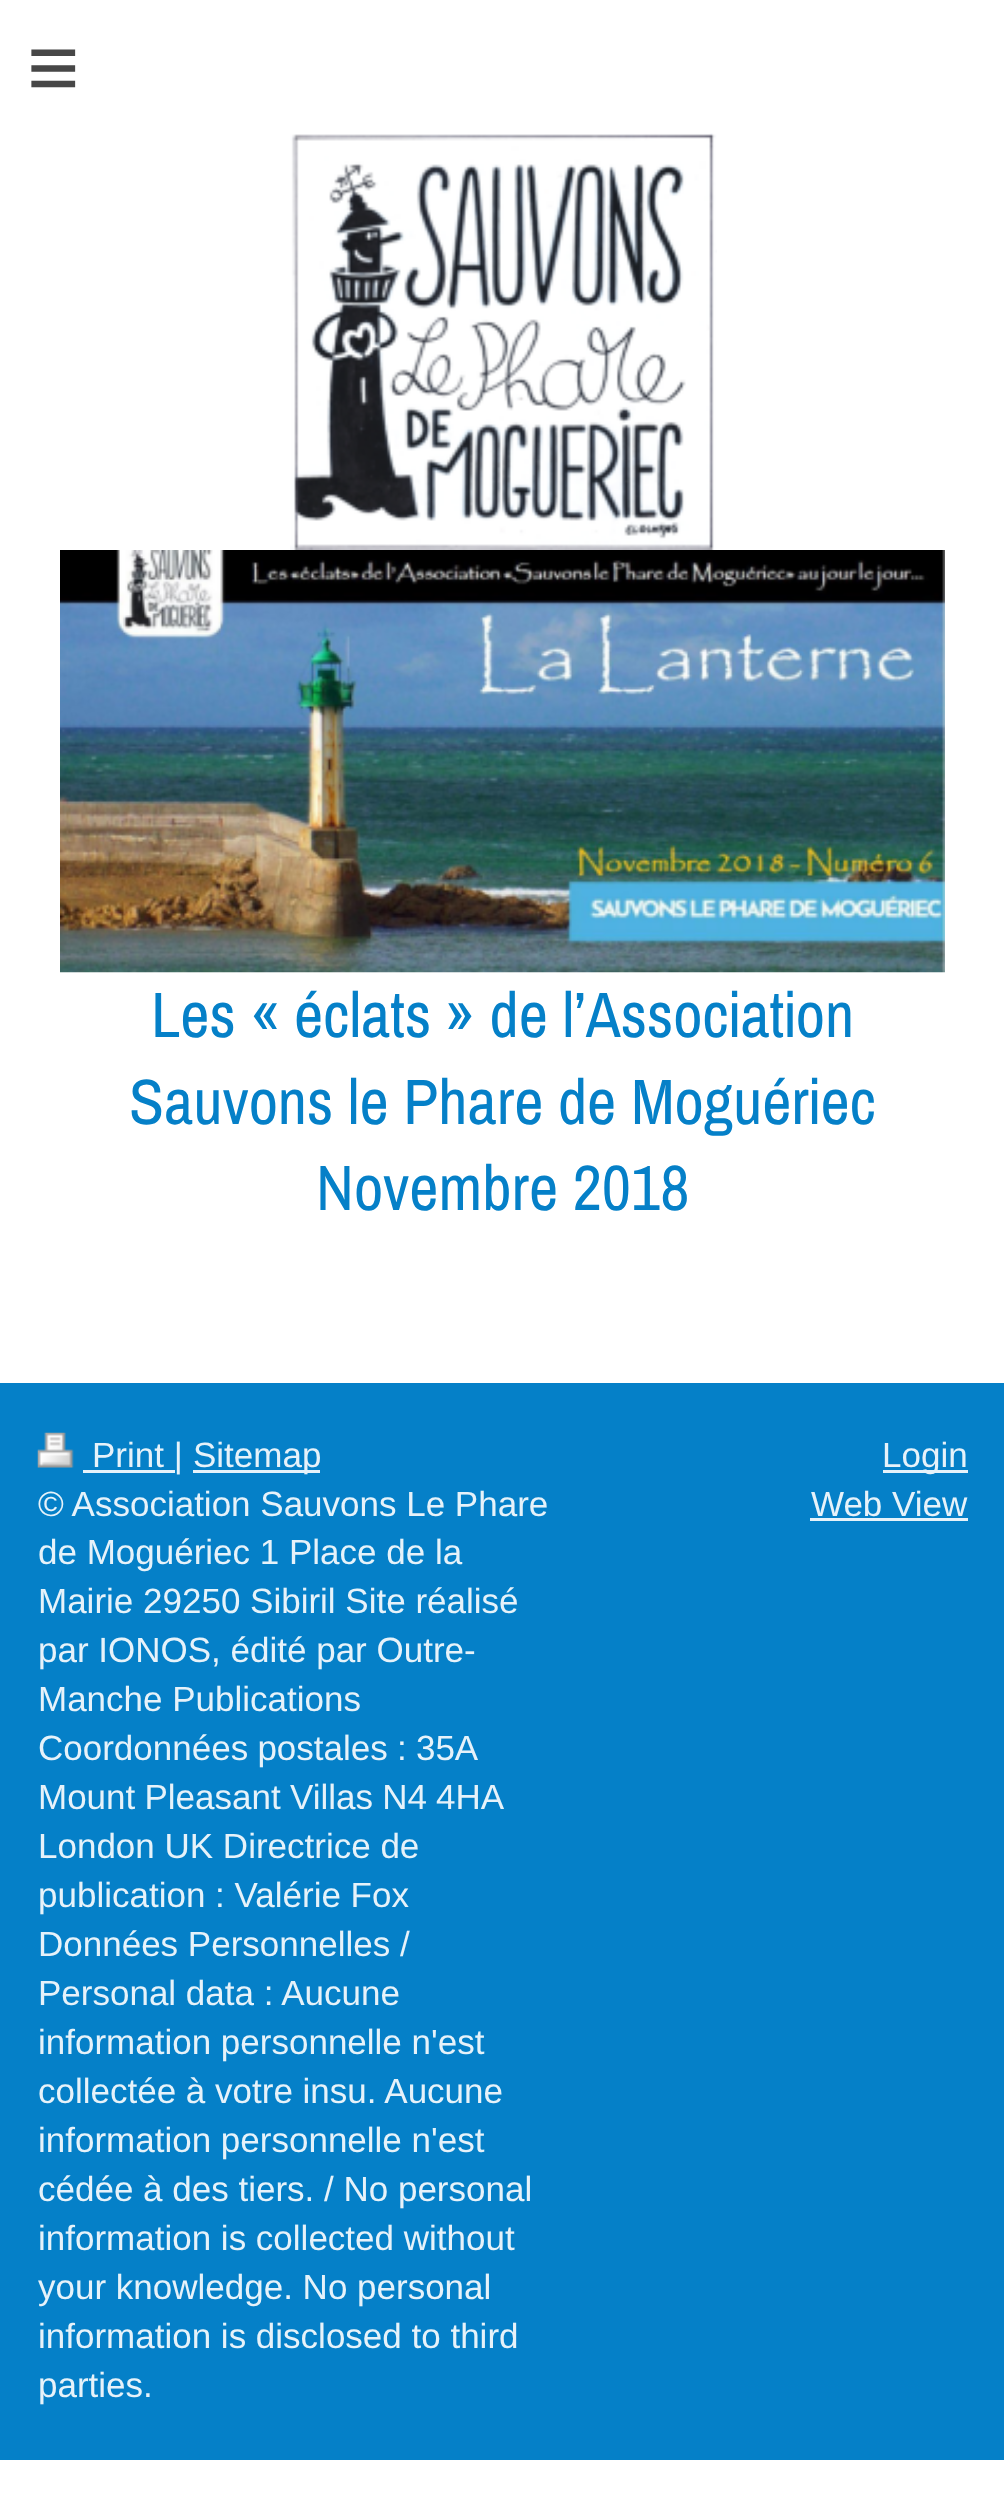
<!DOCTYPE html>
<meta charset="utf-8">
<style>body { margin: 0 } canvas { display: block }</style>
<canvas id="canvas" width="1004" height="2510"></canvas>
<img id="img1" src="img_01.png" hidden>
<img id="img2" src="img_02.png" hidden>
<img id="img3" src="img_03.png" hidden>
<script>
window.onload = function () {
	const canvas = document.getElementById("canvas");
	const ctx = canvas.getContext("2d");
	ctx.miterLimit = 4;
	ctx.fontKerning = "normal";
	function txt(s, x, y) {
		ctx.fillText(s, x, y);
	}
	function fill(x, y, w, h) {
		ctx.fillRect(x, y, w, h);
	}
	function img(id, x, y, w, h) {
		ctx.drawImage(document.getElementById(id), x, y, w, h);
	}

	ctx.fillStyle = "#FFFFFF";
	fill(0, 0, 1004, 2510);
	img("img1", 290, 133, 427, 417);
	img("img2", 60, 550, 885, 423);
	ctx.fillStyle = "#0580C8";
	fill(0, 1383, 1004, 1077);
	img("img3", 37, 1432, 37, 36);
	ctx.fillStyle = "#E6F2FA";
	fill(83, 1470, 92, 3);
	fill(193, 1470, 127, 3);
	fill(883, 1470, 85, 3);
	fill(810, 1518, 158, 3);
	ctx.letterSpacing = "26px";
	ctx.font = "90px Liberation Sans";
	ctx.fillStyle = "#474747";
	txt("≡", 27, 98);
	ctx.letterSpacing = "0px";
	ctx.font = "64px Archivo Narrow";
	ctx.fillStyle = "#0580C8";
	txt("Les « éclats » de l’Association", 151, 1037);
	txt("Sauvons le Phare de Moguériec", 129, 1124);
	txt("Novembre 2018", 316, 1210);
	ctx.font = "35px Liberation Sans";
	ctx.fillStyle = "#E6F2FA";
	txt("Print |", 92, 1467);
	txt("Sitemap", 193, 1467);
	txt("© Association Sauvons Le Phare", 38, 1516);
	txt("de Moguériec 1 Place de la", 38, 1564);
	txt("Mairie 29250 Sibiril Site réalisé", 38, 1613);
	txt("par IONOS, édité par Outre-", 38, 1662);
	txt("Manche Publications", 38, 1711);
	ctx.wordSpacing = "-0.5px";
	txt("Coordonnées postales : 35A", 38, 1760);
	txt("Mount Pleasant Villas N4 4HA", 38, 1809);
	ctx.wordSpacing = "0px";
	txt("London UK Directrice de", 38, 1858);
	txt("publication : Valérie Fox", 38, 1907);
	txt("Données Personnelles /", 38, 1956);
	txt("Personal data : Aucune", 38, 2005);
	txt("information personnelle n'est", 38, 2054);
	txt("collectée à votre insu. Aucune", 38, 2103);
	txt("information personnelle n'est", 38, 2152);
	txt("cédée à des tiers. / No personal", 38, 2201);
	txt("information is collected without", 38, 2250);
	txt("your knowledge. No personal", 38, 2299);
	txt("information is disclosed to third", 38, 2348);
	txt("parties.", 38, 2397);
	txt("Login", 882, 1467);
	txt("Web View", 811, 1516);
};
</script>
